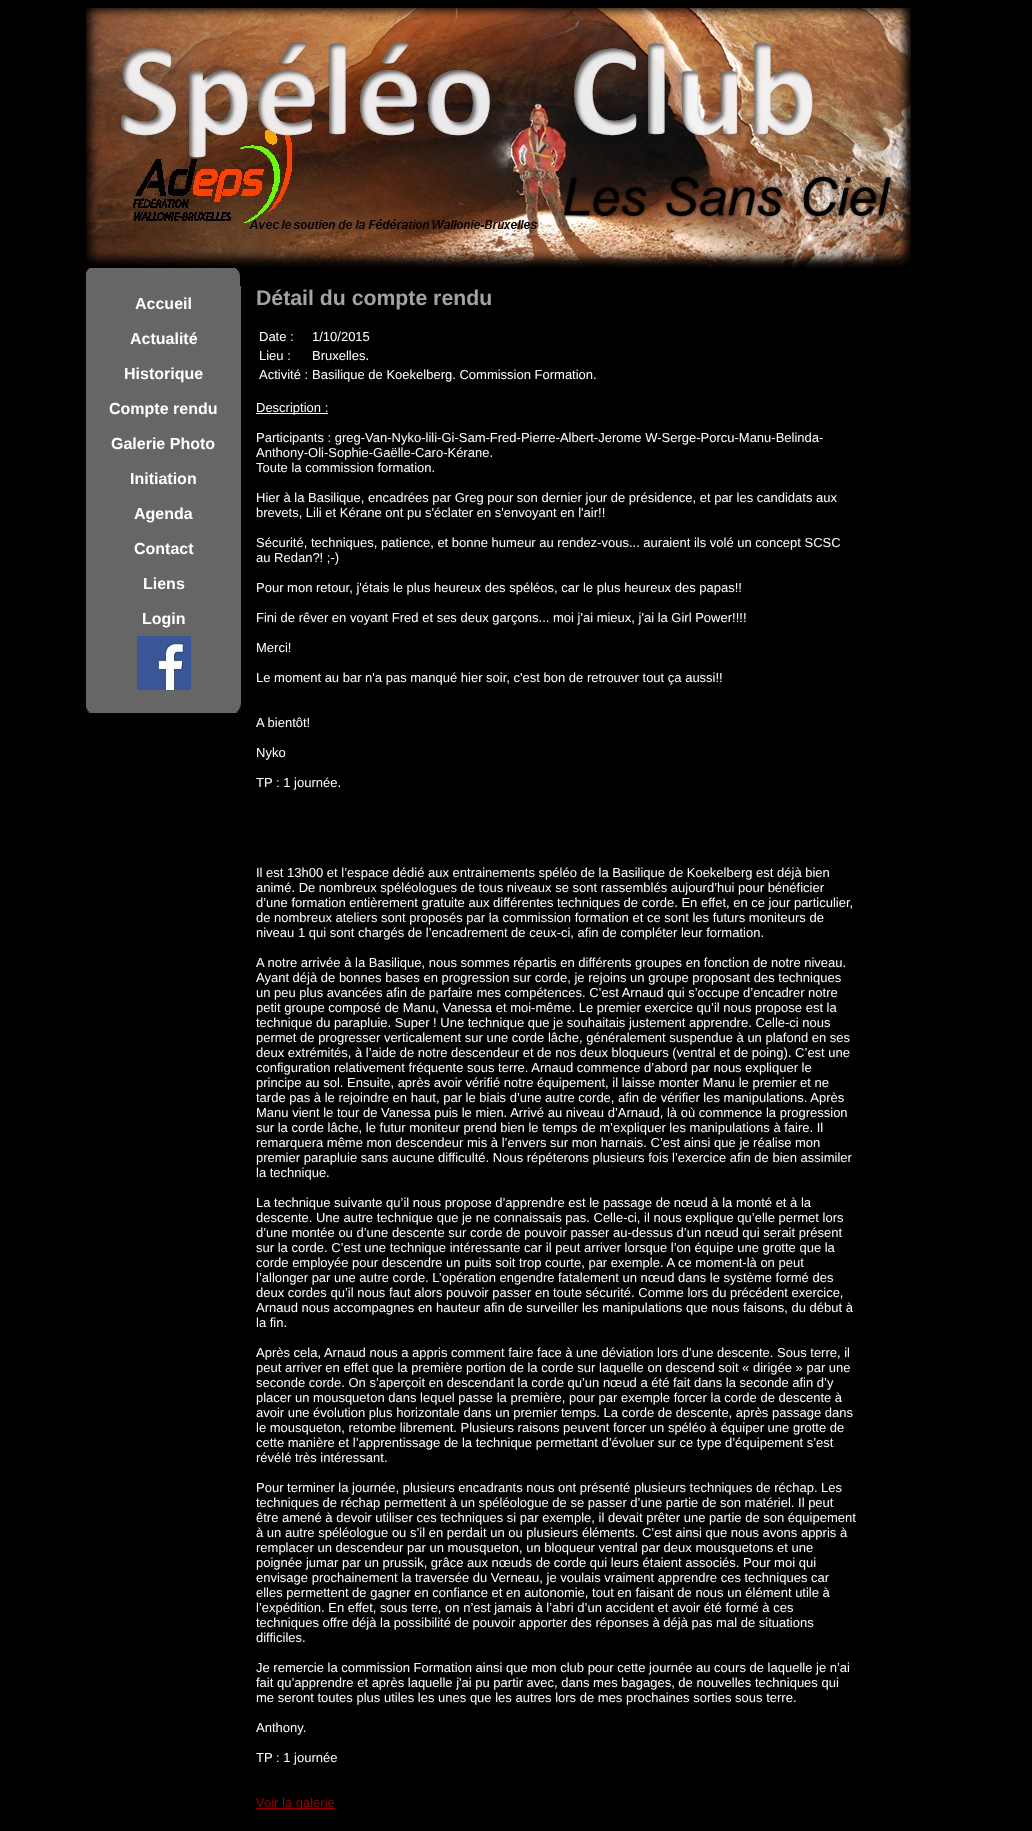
<!DOCTYPE html>
<meta charset="utf-8">
<style>body { margin: 0 } canvas { display: block }</style>
<canvas id="canvas" width="1032" height="1831"></canvas>
<img id="img1" src="img_01.png" hidden>
<img id="img2" src="img_02.png" hidden>
<img id="img3" src="img_03.png" hidden>
<img id="img4" src="img_04.png" hidden>
<script>
window.onload = function () {
	const canvas = document.getElementById("canvas");
	const ctx = canvas.getContext("2d");
	ctx.miterLimit = 4;
	ctx.fontKerning = "normal";
	function txt(s, x, y) {
		ctx.fillText(s, x, y);
	}
	function fill(x, y, w, h) {
		ctx.fillRect(x, y, w, h);
	}
	function img(id, x, y, w, h) {
		ctx.drawImage(document.getElementById(id), x, y, w, h);
	}

	ctx.fillStyle = "#000000";
	fill(0, 0, 1032, 1831);
	img("img1", 86, 8, 825, 260);
	img("img2", 86, 268, 154, 18);
	ctx.fillStyle = "#666666";
	fill(86, 286, 155, 404);
	img("img3", 137, 636, 54, 54);
	ctx.fillStyle = "#FFFFFF";
	fill(256, 413, 72, 1);
	ctx.fillStyle = "#990000";
	fill(256, 1808, 79, 1);
	img("img4", 86, 690, 155, 23);
	ctx.font = "bold 16px Liberation Sans";
	ctx.fillStyle = "#FFFFFF";
	txt("Accueil", 135, 309);
	txt("Actualité", 130, 344);
	txt("Historique", 124, 379);
	txt("Compte rendu", 109, 414);
	txt("Galerie Photo", 111, 449);
	txt("Initiation", 130, 484);
	txt("Agenda", 134, 519);
	txt("Contact", 134, 554);
	txt("Liens", 143, 589);
	txt("Login", 142, 624);
	ctx.font = "bold 21.25px Liberation Sans";
	ctx.fillStyle = "#A3A3A3";
	txt("Détail du compte rendu", 256, 305);
	ctx.font = "13px Liberation Sans";
	ctx.fillStyle = "#FFFFFF";
	txt("Date :", 259, 341);
	txt("1/10/2015", 312, 341);
	txt("Lieu :", 259, 360);
	txt("Bruxelles.", 312, 360);
	txt("Activité :", 259, 379);
	txt("Basilique de Koekelberg. Commission Formation.", 312, 379);
	txt("Description :", 256, 412);
	txt("Participants : greg-Van-Nyko-lili-Gi-Sam-Fred-Pierre-Albert-Jerome W-Serge-Porcu-Manu-Belinda-", 256, 442);
	txt("Anthony-Oli-Sophie-Gaëlle-Caro-Kérane.", 256, 457);
	txt("Toute la commission formation.", 256, 472);
	txt("Hier à la Basilique, encadrées par Greg pour son dernier jour de présidence, et par les candidats aux", 256, 502);
	txt("brevets, Lili et Kérane ont pu s'éclater en s'envoyant en l'air!!", 256, 517);
	txt("Sécurité, techniques, patience, et bonne humeur au rendez-vous... auraient ils volé un concept SCSC", 256, 547);
	txt("au Redan?! ;-)", 256, 562);
	txt("Pour mon retour, j'étais le plus heureux des spéléos, car le plus heureux des papas!!", 256, 592);
	txt("Fini de rêver en voyant Fred et ses deux garçons... moi j'ai mieux, j'ai la Girl Power!!!!", 256, 622);
	txt("Merci!", 256, 652);
	txt("Le moment au bar n'a pas manqué hier soir, c'est bon de retrouver tout ça aussi!!", 256, 682);
	txt("A bientôt!", 256, 727);
	txt("Nyko", 256, 757);
	txt("TP : 1 journée.", 256, 787);
	txt("Il est 13h00 et l’espace dédié aux entrainements spéléo de la Basilique de Koekelberg est déjà bien", 256, 877);
	txt("animé. De nombreux spéléologues de tous niveaux se sont rassemblés aujourd’hui pour bénéficier", 256, 892);
	txt("d’une formation entièrement gratuite aux différentes techniques de corde. En effet, en ce jour particulier,", 256, 907);
	txt("de nombreux ateliers sont proposés par la commission formation et ce sont les futurs moniteurs de", 256, 922);
	txt("niveau 1 qui sont chargés de l’encadrement de ceux-ci, afin de compléter leur formation.", 256, 937);
	txt("A notre arrivée à la Basilique, nous sommes répartis en différents groupes en fonction de notre niveau.", 256, 967);
	txt("Ayant déjà de bonnes bases en progression sur corde, je rejoins un groupe proposant des techniques", 256, 982);
	txt("un peu plus avancées afin de parfaire mes compétences. C’est Arnaud qui s’occupe d’encadrer notre", 256, 997);
	txt("petit groupe composé de Manu, Vanessa et moi-même. Le premier exercice qu’il nous propose est la", 256, 1012);
	txt("technique du parapluie. Super ! Une technique que je souhaitais justement apprendre. Celle-ci nous", 256, 1027);
	txt("permet de progresser verticalement sur une corde lâche, généralement suspendue à un plafond en ses", 256, 1042);
	txt("deux extrémités, à l’aide de notre descendeur et de nos deux bloqueurs (ventral et de poing). C’est une", 256, 1057);
	txt("configuration relativement fréquente sous terre. Arnaud commence d’abord par nous expliquer le", 256, 1072);
	txt("principe au sol. Ensuite, après avoir vérifié notre équipement, il laisse monter Manu le premier et ne", 256, 1087);
	txt("tarde pas à le rejoindre en haut, par le biais d’une autre corde, afin de vérifier les manipulations. Après", 256, 1102);
	txt("Manu vient le tour de Vanessa puis le mien. Arrivé au niveau d’Arnaud, là où commence la progression", 256, 1117);
	txt("sur la corde lâche, le futur moniteur prend bien le temps de m’expliquer les manipulations à faire. Il", 256, 1132);
	txt("remarquera même mon descendeur mis à l’envers sur mon harnais. C’est ainsi que je réalise mon", 256, 1147);
	txt("premier parapluie sans aucune difficulté. Nous répéterons plusieurs fois l’exercice afin de bien assimiler", 256, 1162);
	txt("la technique.", 256, 1177);
	txt("La technique suivante qu’il nous propose d’apprendre est le passage de nœud à la monté et à la", 256, 1207);
	txt("descente. Une autre technique que je ne connaissais pas. Celle-ci, il nous explique qu’elle permet lors", 256, 1222);
	txt("d’une montée ou d’une descente sur corde de pouvoir passer au-dessus d’un nœud qui serait présent", 256, 1237);
	txt("sur la corde. C’est une technique intéressante car il peut arriver lorsque l’on équipe une grotte que la", 256, 1252);
	txt("corde employée pour descendre un puits soit trop courte, par exemple. A ce moment-là on peut", 256, 1267);
	txt("l’allonger par une autre corde. L’opération engendre fatalement un nœud dans le système formé des", 256, 1282);
	txt("deux cordes qu’il nous faut alors pouvoir passer en toute sécurité. Comme lors du précédent exercice,", 256, 1297);
	txt("Arnaud nous accompagnes en hauteur afin de surveiller les manipulations que nous faisons, du début à", 256, 1312);
	txt("la fin.", 256, 1327);
	txt("Après cela, Arnaud nous a appris comment faire face à une déviation lors d’une descente. Sous terre, il", 256, 1357);
	txt("peut arriver en effet que la première portion de la corde sur laquelle on descend soit « dirigée » par une", 256, 1372);
	txt("seconde corde. On s’aperçoit en descendant la corde qu’un nœud a été fait dans la seconde afin d’y", 256, 1387);
	txt("placer un mousqueton dans lequel passe la première, pour par exemple forcer la corde de descente à", 256, 1402);
	txt("avoir une évolution plus horizontale dans un premier temps. La corde de descente, après passage dans", 256, 1417);
	txt("le mousqueton, retombe librement. Plusieurs raisons peuvent forcer un spéléo à équiper une grotte de", 256, 1432);
	txt("cette manière et l’apprentissage de la technique permettant d’évoluer sur ce type d’équipement s’est", 256, 1447);
	txt("révélé très intéressant.", 256, 1462);
	txt("Pour terminer la journée, plusieurs encadrants nous ont présenté plusieurs techniques de réchap. Les", 256, 1492);
	txt("techniques de réchap permettent à un spéléologue de se passer d’une partie de son matériel. Il peut", 256, 1507);
	txt("être amené à devoir utiliser ces techniques si par exemple, il devait prêter une partie de son équipement", 256, 1522);
	txt("à un autre spéléologue ou s’il en perdait un ou plusieurs éléments. C’est ainsi que nous avons appris à", 256, 1537);
	txt("remplacer un descendeur par un mousqueton, un bloqueur ventral par deux mousquetons et une", 256, 1552);
	txt("poignée jumar par un prussik, grâce aux nœuds de corde qui leurs étaient associés. Pour moi qui", 256, 1567);
	txt("envisage prochainement la traversée du Verneau, je voulais vraiment apprendre ces techniques car", 256, 1582);
	txt("elles permettent de gagner en confiance et en autonomie, tout en faisant de nous un élément utile à", 256, 1597);
	txt("l’expédition. En effet, sous terre, on n’est jamais à l’abri d’un accident et avoir été formé à ces", 256, 1612);
	txt("techniques offre déjà la possibilité de pouvoir apporter des réponses à déjà pas mal de situations", 256, 1627);
	txt("difficiles.", 256, 1642);
	txt("Je remercie la commission Formation ainsi que mon club pour cette journée au cours de laquelle je n’ai", 256, 1672);
	txt("fait qu’apprendre et après laquelle j'ai pu partir avec, dans mes bagages, de nouvelles techniques qui", 256, 1687);
	txt("me seront toutes plus utiles les unes que les autres lors de mes prochaines sorties sous terre.", 256, 1702);
	txt("Anthony.", 256, 1732);
	txt("TP : 1 journée", 256, 1762);
	ctx.fillStyle = "#990000";
	txt("Voir la galerie", 256, 1807);
};
</script>
